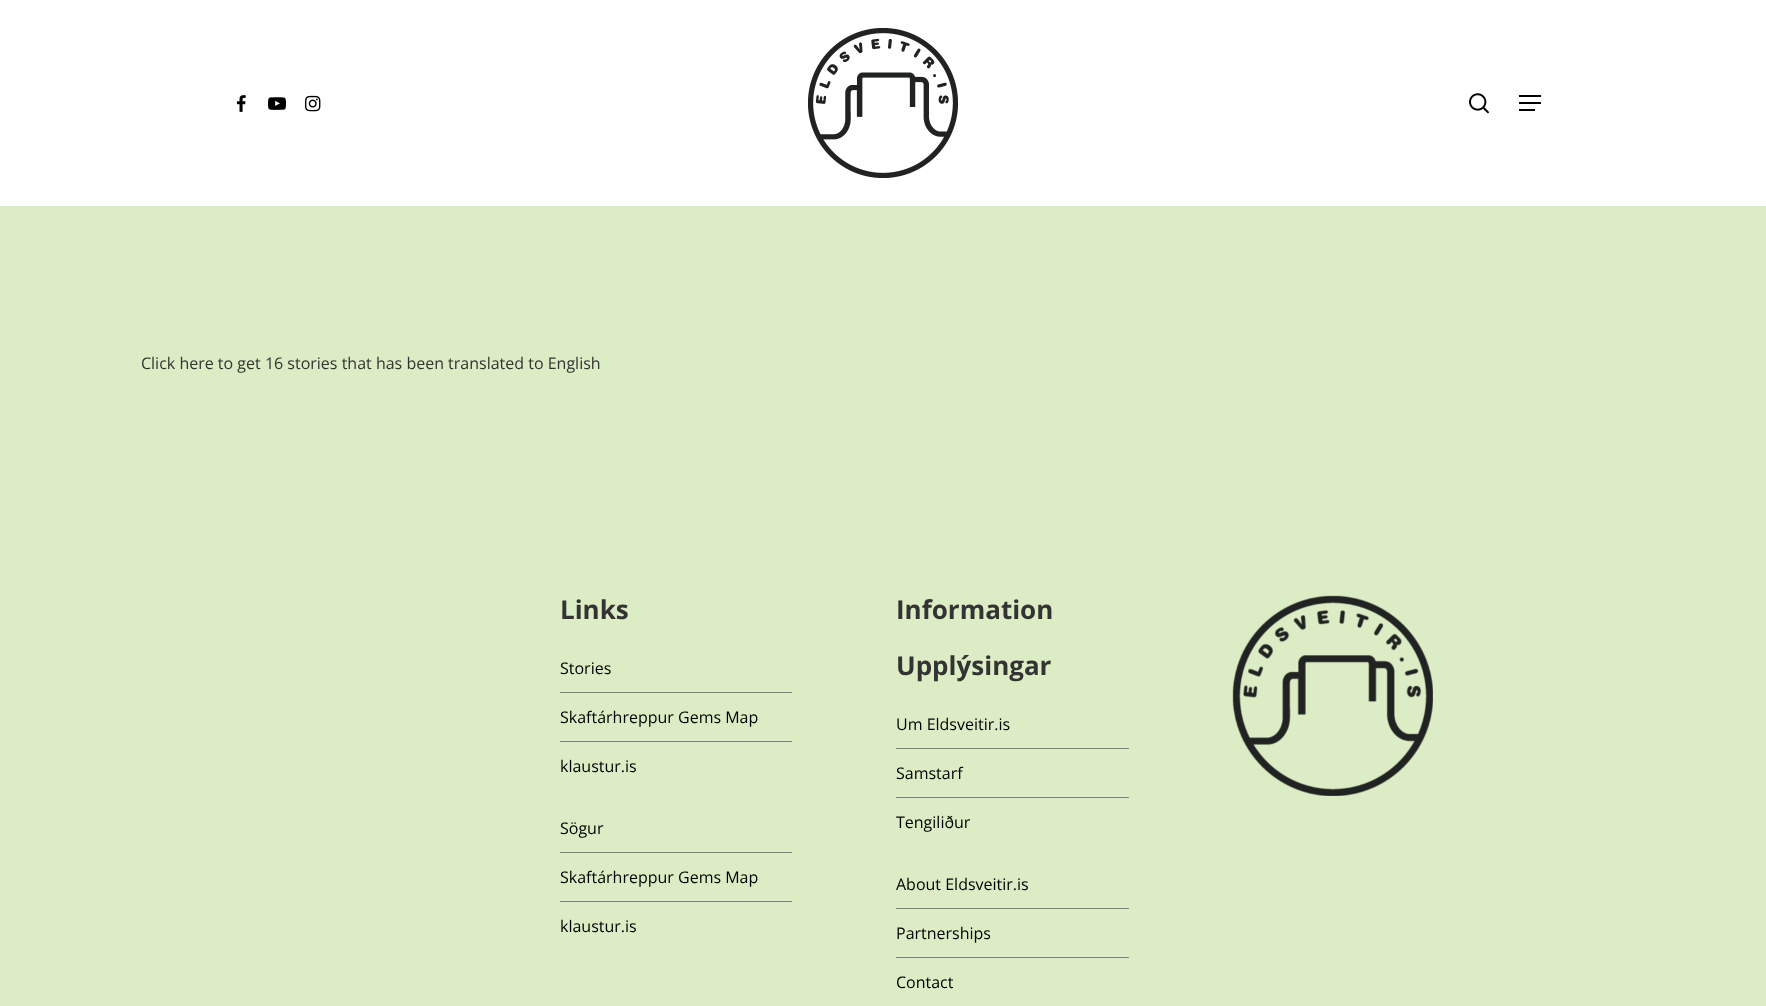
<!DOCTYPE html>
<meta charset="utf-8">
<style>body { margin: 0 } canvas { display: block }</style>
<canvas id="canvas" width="1766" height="1006"></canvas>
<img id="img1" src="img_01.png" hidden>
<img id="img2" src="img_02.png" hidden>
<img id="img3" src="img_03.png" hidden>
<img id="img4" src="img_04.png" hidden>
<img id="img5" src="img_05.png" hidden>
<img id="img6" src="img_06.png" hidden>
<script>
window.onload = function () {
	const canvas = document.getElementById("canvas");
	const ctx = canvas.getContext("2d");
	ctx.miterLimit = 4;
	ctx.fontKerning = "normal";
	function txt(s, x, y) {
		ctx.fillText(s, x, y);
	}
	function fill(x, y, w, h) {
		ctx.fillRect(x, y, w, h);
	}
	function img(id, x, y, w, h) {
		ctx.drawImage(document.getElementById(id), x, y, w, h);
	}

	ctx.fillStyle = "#DCECC4";
	fill(0, 0, 1766, 1006);
	ctx.fillStyle = "#FFFFFF";
	fill(0, 0, 1766, 206);
	img("img1", 808, 28, 150, 150);
	img("img2", 236, 95, 10, 17);
	img("img3", 268, 97, 18, 13);
	img("img4", 305, 95, 16, 17);
	img("img5", 1469, 93, 20, 21);
	ctx.fillStyle = "#000000";
	fill(1519, 95, 22, 2);
	fill(1519, 109, 16, 2);
	fill(1519, 102, 22, 2);
	ctx.fillStyle = "#808080";
	fill(560, 692, 232, 1);
	fill(560, 741, 232, 1);
	fill(560, 852, 232, 1);
	fill(560, 901, 232, 1);
	fill(896, 748, 233, 1);
	fill(896, 797, 233, 1);
	fill(896, 908, 233, 1);
	fill(896, 957, 233, 1);
	img("img6", 1232, 595, 201, 201);
	ctx.font = "16px Open Sans";
	ctx.fillStyle = "#333333";
	txt("Click here to get 16 stories that has been translated to English", 141, 369);
	ctx.font = "bold 26px Open Sans";
	txt("Links", 560, 619);
	ctx.font = "16px Open Sans";
	ctx.fillStyle = "#000000";
	txt("Stories", 560, 674);
	txt("Skaftárhreppur Gems Map", 560, 723);
	txt("klaustur.is", 560, 772);
	txt("Sögur", 560, 834);
	txt("Skaftárhreppur Gems Map", 560, 883);
	txt("klaustur.is", 560, 932);
	ctx.font = "bold 26px Open Sans";
	ctx.fillStyle = "#333333";
	txt("Information", 896, 619);
	txt("Upplýsingar", 896, 675);
	ctx.font = "16px Open Sans";
	ctx.fillStyle = "#000000";
	txt("Um Eldsveitir.is", 896, 730);
	txt("Samstarf", 896, 779);
	txt("Tengiliður", 896, 828);
	txt("About Eldsveitir.is", 896, 890);
	txt("Partnerships", 896, 939);
	txt("Contact", 896, 988);
};
</script>
